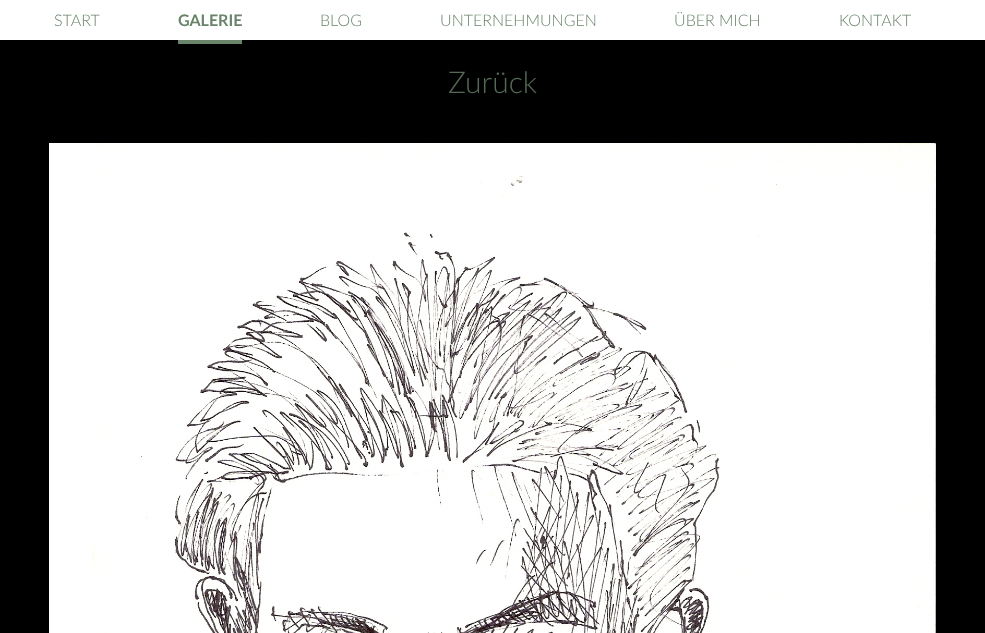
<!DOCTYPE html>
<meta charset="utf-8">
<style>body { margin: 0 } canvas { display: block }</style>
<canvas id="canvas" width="985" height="633"></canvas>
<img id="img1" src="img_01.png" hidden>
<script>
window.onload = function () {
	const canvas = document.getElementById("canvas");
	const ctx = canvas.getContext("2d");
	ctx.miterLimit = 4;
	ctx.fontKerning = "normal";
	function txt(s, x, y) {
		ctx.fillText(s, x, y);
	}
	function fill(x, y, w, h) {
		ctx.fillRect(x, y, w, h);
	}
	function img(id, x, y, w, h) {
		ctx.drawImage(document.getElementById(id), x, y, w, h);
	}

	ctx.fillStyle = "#000000";
	fill(0, 0, 985, 633);
	ctx.fillStyle = "#FFFFFF";
	fill(0, 0, 985, 40);
	ctx.fillStyle = "#6A846B";
	fill(178, 40, 64, 4);
	img("img1", 49, 143, 887, 490);
	ctx.font = "300 16px Lato";
	txt("START", 54, 26);
	ctx.font = "bold 16px Lato";
	txt("GALERIE", 178, 26);
	ctx.font = "300 16px Lato";
	txt("BLOG", 320, 26);
	txt("UNTERNEHMUNGEN", 440, 26);
	txt("ÜBER MICH", 674, 26);
	txt("KONTAKT", 839, 26);
	ctx.font = "300 30px Lato";
	ctx.fillStyle = "#556A56";
	txt("Zurück", 448, 93);
};
</script>
